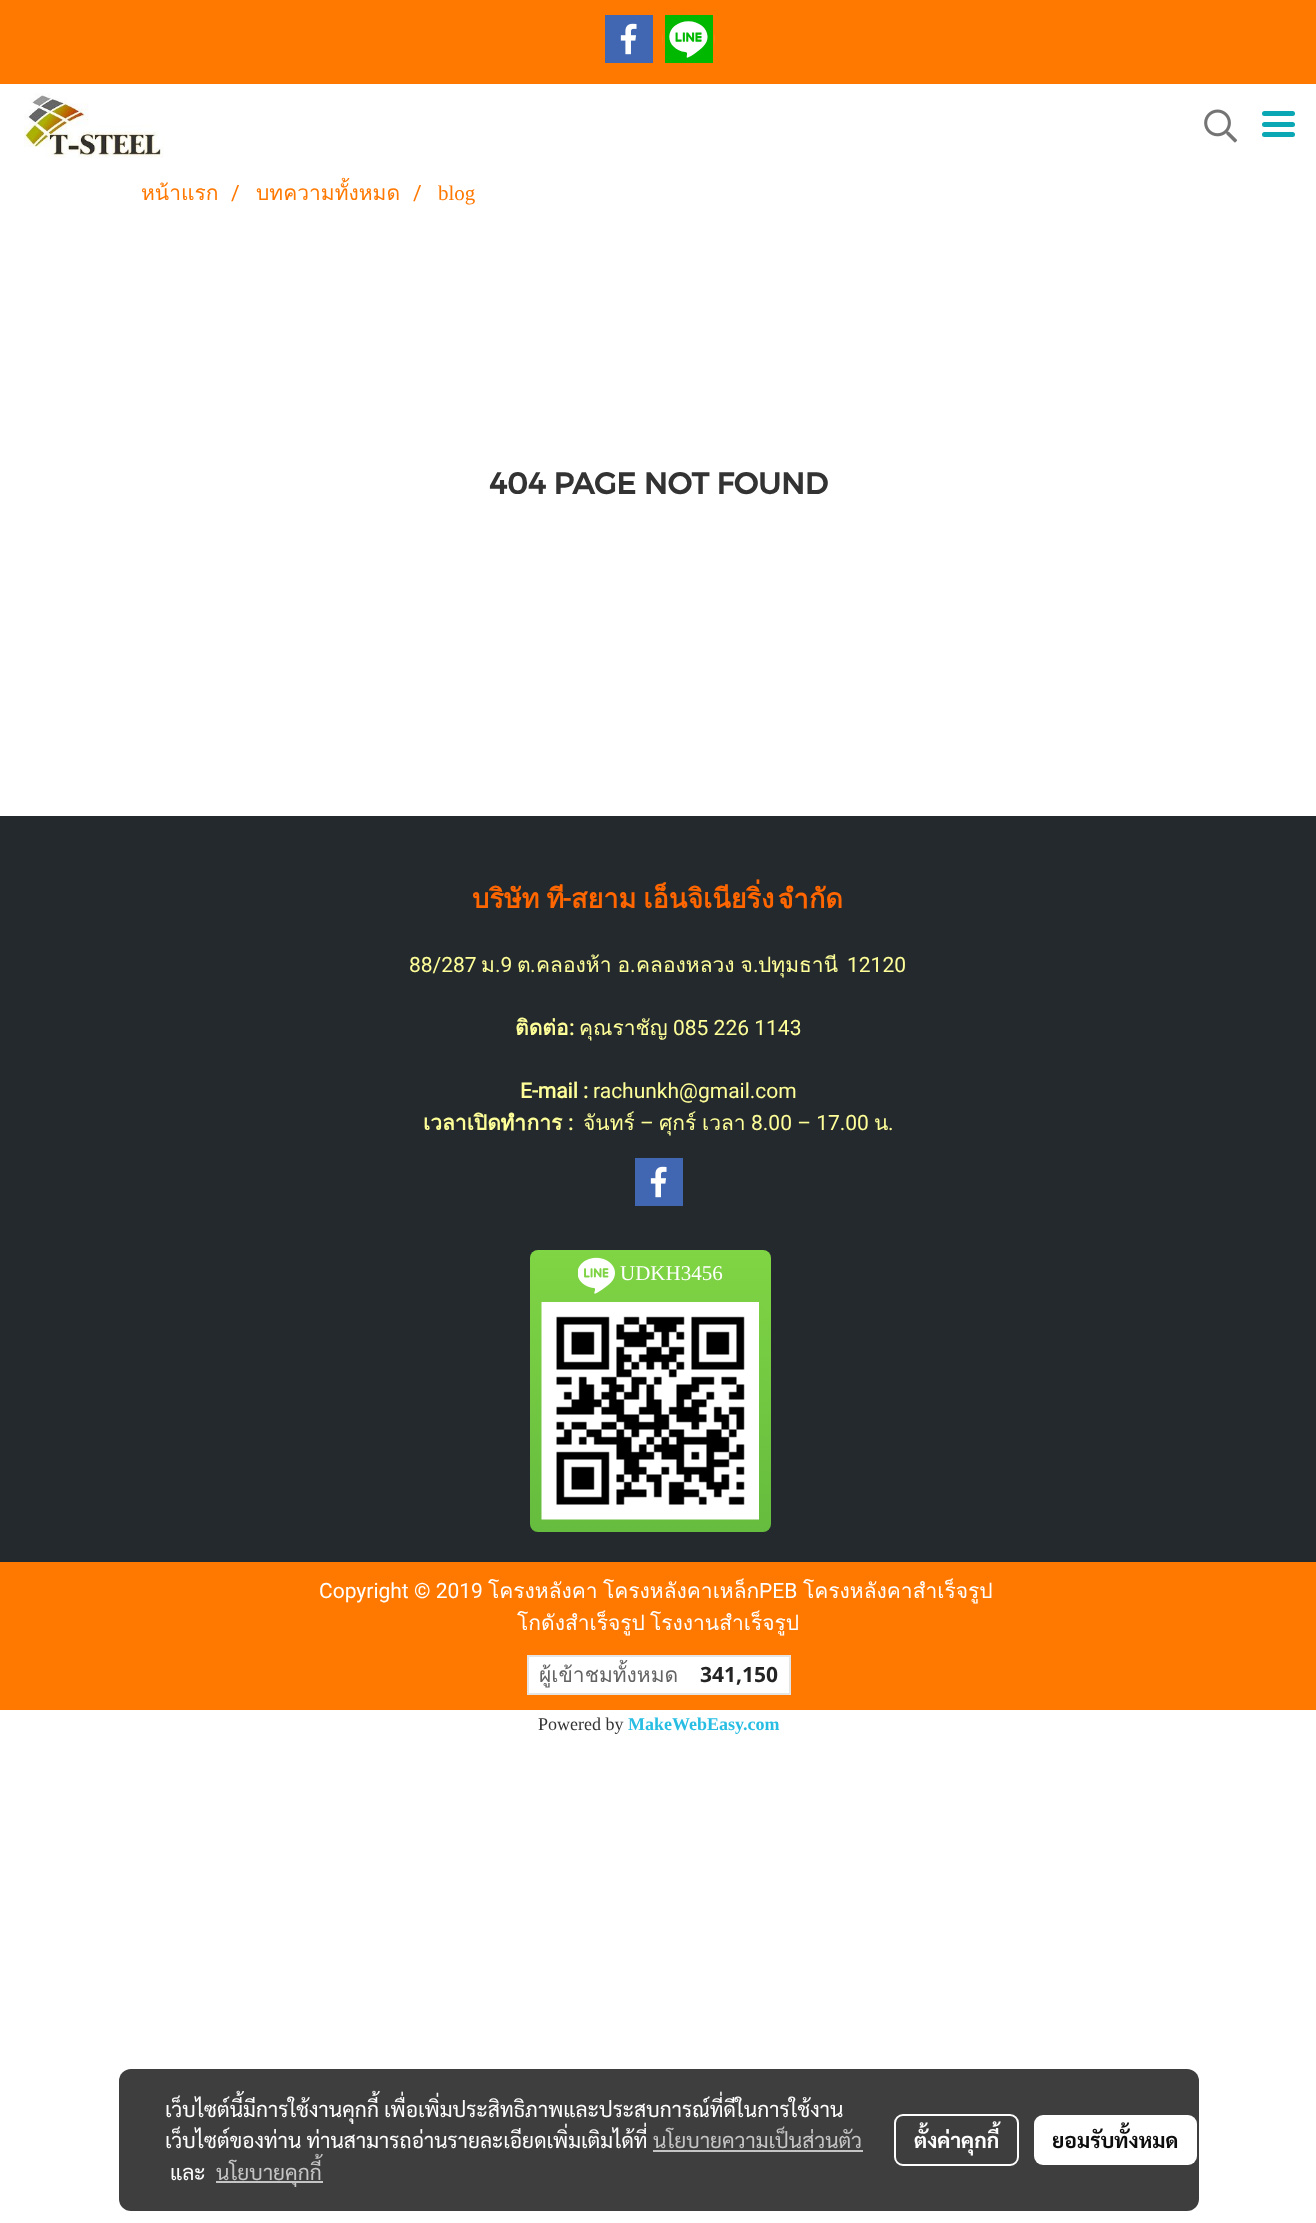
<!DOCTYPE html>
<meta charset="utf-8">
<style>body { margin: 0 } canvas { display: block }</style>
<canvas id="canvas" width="1316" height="2223"></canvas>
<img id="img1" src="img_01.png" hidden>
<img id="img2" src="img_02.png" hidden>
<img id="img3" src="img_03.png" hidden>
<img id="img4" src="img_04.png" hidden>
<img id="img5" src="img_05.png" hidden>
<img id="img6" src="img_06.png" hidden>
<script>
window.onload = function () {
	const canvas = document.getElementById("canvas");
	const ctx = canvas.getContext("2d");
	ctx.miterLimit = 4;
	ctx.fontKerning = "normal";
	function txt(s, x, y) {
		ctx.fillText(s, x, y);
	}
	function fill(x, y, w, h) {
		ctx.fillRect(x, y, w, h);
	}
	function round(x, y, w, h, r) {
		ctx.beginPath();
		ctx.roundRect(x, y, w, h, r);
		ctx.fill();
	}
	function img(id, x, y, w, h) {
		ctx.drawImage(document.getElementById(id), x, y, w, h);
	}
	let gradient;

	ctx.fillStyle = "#FFFFFF";
	fill(0, 0, 1316, 2223);
	ctx.fillStyle = "#FF7800";
	fill(0, 0, 1316, 84);
	ctx.fillStyle = "#4267B2";
	fill(605, 15, 48, 48);
	img("img1", 620, 23, 17, 32);
	ctx.fillStyle = "#00B800";
	fill(665, 15, 48, 48);
	img("img2", 662, 12, 53, 54);
	img("img3", 24, 93, 140, 65);
	img("img4", 1204, 109, 34, 34);
	ctx.fillStyle = "#0BA7B4";
	round(1262, 122, 33, 5, 2.5);
	round(1262, 111, 33, 5, 2.5);
	round(1262, 132, 33, 5, 2.5);
	ctx.fillStyle = "#23292C";
	fill(0, 816, 1316, 746);
	ctx.fillStyle = "#4267B2";
	fill(635, 1158, 48, 48);
	img("img1", 650, 1166, 17, 32);
	gradient = ctx.createLinearGradient(650, 1250, 650, 1532);
	gradient.addColorStop(0, "#80D544");
	gradient.addColorStop(1, "#65BC3E");
	ctx.fillStyle = gradient;
	round(530, 1250, 241, 282, 8);
	img("img5", 578, 1257, 37, 37);
	img("img6", 541, 1302, 218, 218);
	ctx.fillStyle = "#FF7800";
	fill(0, 1562, 1316, 148);
	ctx.fillStyle = "#FFFFFF";
	ctx.beginPath();
	ctx.rect(528, 1656, 262, 38);
	ctx.fill();
	ctx.strokeStyle = "#E5E5E5";
	ctx.lineWidth = 2;
	ctx.stroke();
	ctx.fillStyle = "#3E3E3E";
	round(119, 2069, 1080, 142, 12);
	ctx.fillStyle = "#C5C5C5";
	fill(653, 2150, 210, 2);
	fill(216, 2181, 107, 2);
	ctx.beginPath();
	ctx.roundRect(895, 2115, 123, 50, 8);
	ctx.strokeStyle = "#FFFFFF";
	ctx.stroke();
	ctx.fillStyle = "#FFFFFF";
	round(1034, 2115, 163, 50, 9);
	ctx.font = "21px Loma";
	ctx.fillStyle = "#FF7800";
	txt("หน้าแรก", 141, 200);
	ctx.font = "21px Roboto";
	txt("/", 231, 200);
	ctx.font = "21px Loma";
	txt("บทความทั้งหมด", 256, 200);
	ctx.font = "21px Roboto";
	txt("/", 413, 200);
	ctx.font = "21px Liberation Serif";
	txt("blog", 438, 200);
	ctx.font = "bold 30px Montserrat";
	ctx.fillStyle = "#333333";
	txt("404 PAGE NOT FOUND", 489, 494);
	ctx.wordSpacing = "-2px";
	ctx.font = "bold 27px Loma";
	ctx.fillStyle = "#FF6600";
	txt("บริษัท ที", 472, 908);
	ctx.wordSpacing = "0px";
	ctx.font = "bold 27px Roboto";
	txt("-", 563, 908);
	ctx.wordSpacing = "-2px";
	ctx.font = "bold 27px Loma";
	txt("สยาม เอ็นจิเนียริ่ง", 571, 908);
	ctx.wordSpacing = "0px";
	txt("จำกัด", 778, 908);
	ctx.font = "21px Roboto";
	ctx.fillStyle = "#FFFF99";
	txt("88/287", 409, 972);
	ctx.font = "21px Loma";
	txt("ม", 481, 972);
	ctx.font = "21px Roboto";
	txt(".9", 495, 972);
	ctx.font = "21px Loma";
	txt("ต", 517, 972);
	ctx.font = "21px Roboto";
	txt(".", 530, 972);
	ctx.wordSpacing = "-1px";
	ctx.font = "21px Loma";
	txt("คลองห้า อ", 536, 972);
	ctx.wordSpacing = "0px";
	ctx.font = "21px Roboto";
	txt(".", 630, 972);
	ctx.wordSpacing = "-1px";
	ctx.font = "21px Loma";
	txt("คลองหลวง จ", 636, 972);
	ctx.wordSpacing = "0px";
	ctx.font = "21px Roboto";
	txt(".", 753, 972);
	ctx.font = "21px Loma";
	txt("ปทุมธานี", 758, 972);
	ctx.font = "21px Roboto";
	txt("12120", 847, 972);
	ctx.font = "bold 21px Loma";
	txt("ติดต่อ", 515, 1035);
	ctx.font = "bold 21px Roboto";
	txt(":", 569, 1035);
	ctx.font = "21px Loma";
	txt("คุณราชัญ", 579, 1035);
	ctx.font = "21px Roboto";
	txt("085 226 1143", 673, 1035);
	ctx.font = "bold 21px Roboto";
	txt("E-mail :", 520, 1098);
	ctx.font = "21px Roboto";
	txt("rachunkh@gmail.com", 593, 1098);
	ctx.font = "bold 21px Loma";
	txt("เวลาเปิดทำการ", 423, 1130);
	ctx.font = "bold 21px Roboto";
	txt(":", 568, 1130);
	ctx.font = "21px Loma";
	txt("จันทร์", 583, 1130);
	ctx.font = "21px Roboto";
	txt("–", 640, 1130);
	ctx.font = "21px Loma";
	txt("ศุกร์", 659, 1130);
	txt("เวลา", 702, 1130);
	ctx.font = "21px Roboto";
	txt("8.00 – 17.00", 751, 1130);
	ctx.font = "21px Loma";
	txt("น", 874, 1130);
	ctx.font = "21px Roboto";
	txt(".", 888, 1130);
	ctx.font = "21px Liberation Serif";
	ctx.fillStyle = "#FFFFFF";
	txt("UDKH3456", 620, 1280);
	ctx.font = "21px Roboto";
	txt("Copyright © 2019", 319, 1598);
	ctx.font = "21px Loma";
	txt("โครงหลังคา", 488, 1598);
	txt("โครงหลังคาเหล็ก", 603, 1598);
	ctx.font = "21px Roboto";
	txt("PEB", 759, 1598);
	ctx.font = "21px Loma";
	txt("โครงหลังคาสำเร็จรูป", 803, 1598);
	ctx.wordSpacing = "-2px";
	txt("โกดังสำเร็จรูป โรงงานสำเร็จรูป", 517, 1630);
	ctx.wordSpacing = "0px";
	ctx.fillStyle = "#636363";
	txt("ผู้เข้าชมทั้งหมด", 539, 1682);
	ctx.font = "bold 21px Open Sans";
	ctx.fillStyle = "#242424";
	txt("341,150", 700, 1682);
	ctx.font = "18px Liberation Serif";
	ctx.fillStyle = "#333333";
	txt("Powered by", 538, 1730);
	ctx.font = "bold 18px Liberation Serif";
	ctx.fillStyle = "#28BEE3";
	txt("MakeWebEasy.com", 628, 1730);
	ctx.font = "21px Sarabun";
	ctx.fillStyle = "#FFFFFF";
	txt("เว็บไซต์นี้มีการใช้งานคุกกี้ เพื่อเพิ่มประสิทธิภาพและประสบการณ์ที่ดีในการใช้งาน", 165, 2117);
	txt("เว็บไซต์ของท่าน ท่านสามารถอ่านรายละเอียดเพิ่มเติมได้ที่", 165, 2148);
	ctx.fillStyle = "#C5C5C5";
	txt("นโยบายความเป็นส่วนตัว", 653, 2148);
	ctx.fillStyle = "#FFFFFF";
	txt("และ", 170, 2180);
	ctx.fillStyle = "#C5C5C5";
	txt("นโยบายคุกกี้", 216, 2180);
	ctx.font = "bold 21px Sarabun";
	ctx.fillStyle = "#FFFFFF";
	txt("ตั้งค่าคุกกี้", 914, 2148);
	ctx.fillStyle = "#0D0D0D";
	txt("ยอมรับทั้งหมด", 1052, 2148);
};
</script>
